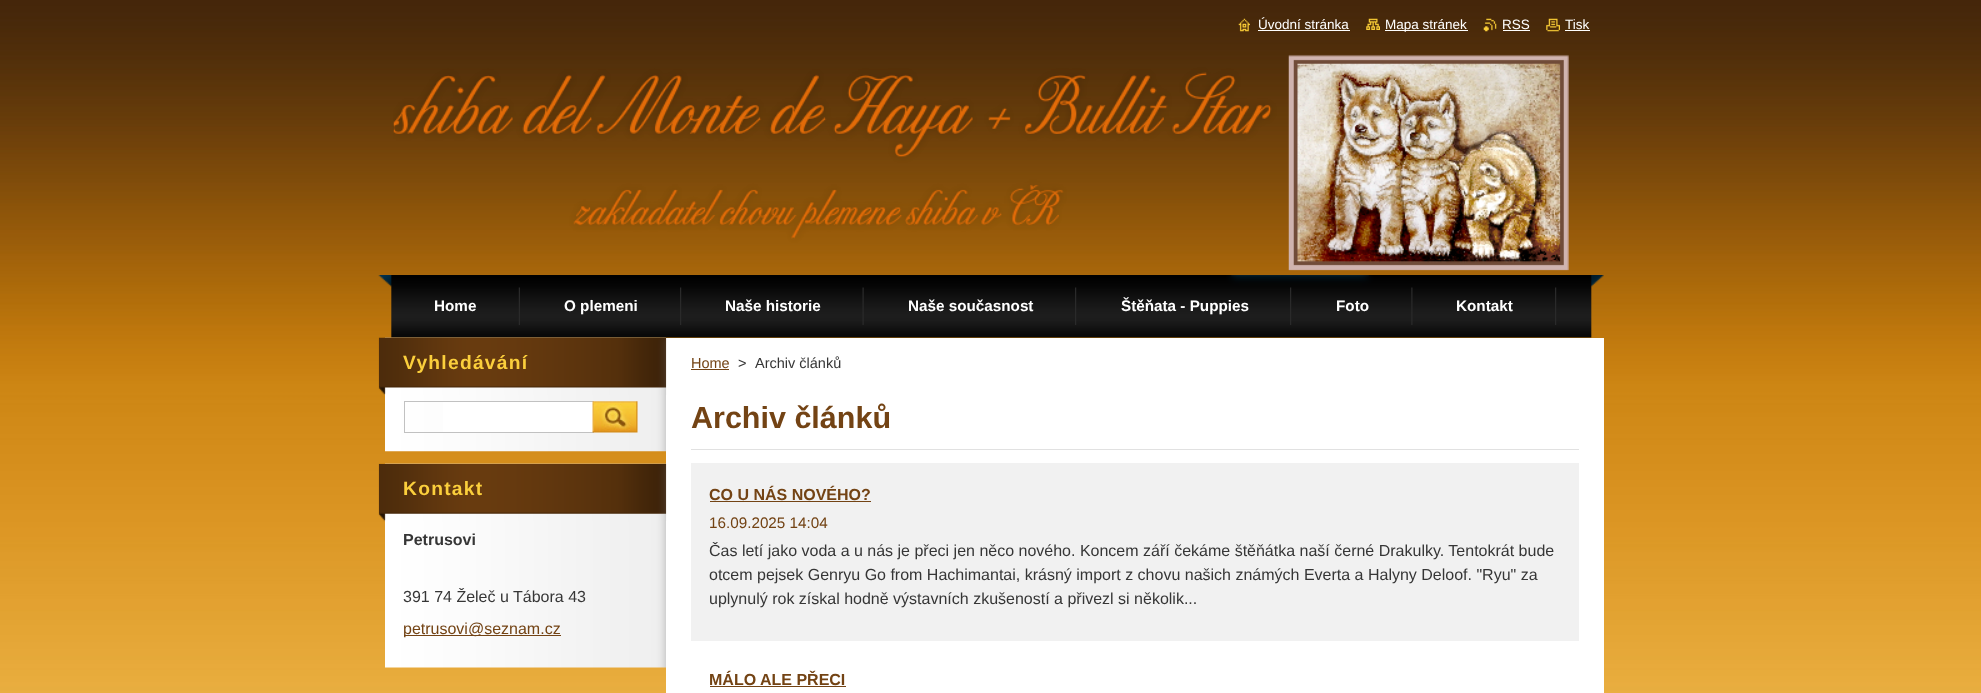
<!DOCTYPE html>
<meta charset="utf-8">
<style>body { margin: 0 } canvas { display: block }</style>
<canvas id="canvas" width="1981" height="693"></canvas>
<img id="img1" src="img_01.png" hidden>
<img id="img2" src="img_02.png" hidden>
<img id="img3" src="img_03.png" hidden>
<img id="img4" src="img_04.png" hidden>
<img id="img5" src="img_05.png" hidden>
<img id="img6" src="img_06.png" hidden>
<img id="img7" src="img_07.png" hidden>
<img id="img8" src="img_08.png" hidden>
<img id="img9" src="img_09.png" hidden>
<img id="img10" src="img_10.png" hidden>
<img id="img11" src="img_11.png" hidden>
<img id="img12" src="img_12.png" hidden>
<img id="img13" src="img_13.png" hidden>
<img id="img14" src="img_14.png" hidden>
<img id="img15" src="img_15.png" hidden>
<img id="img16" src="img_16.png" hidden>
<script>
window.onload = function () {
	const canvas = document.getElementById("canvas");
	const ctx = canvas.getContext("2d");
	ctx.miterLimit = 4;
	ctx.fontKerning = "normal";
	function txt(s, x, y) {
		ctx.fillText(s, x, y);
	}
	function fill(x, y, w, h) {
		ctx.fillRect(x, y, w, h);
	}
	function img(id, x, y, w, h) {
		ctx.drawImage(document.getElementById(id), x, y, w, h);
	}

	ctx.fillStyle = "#FFFFFF";
	fill(0, 0, 1981, 693);
	img("img1", 0, 0, 1981, 693);
	img("img2", 1238, 18, 12, 14);
	fill(1258, 30, 92, 1);
	img("img3", 1366, 18, 14, 12);
	fill(1385, 30, 83, 1);
	img("img4", 1483, 18, 14, 14);
	fill(1503, 30, 27, 1);
	img("img5", 1546, 18, 14, 14);
	fill(1565, 30, 25, 1);
	img("img6", 393, 54, 1176, 217);
	img("img7", 378, 275, 1226, 63);
	img("img8", 518, 287, 2, 38);
	img("img9", 680, 287, 2, 38);
	img("img10", 862, 287, 2, 38);
	img("img9", 1075, 287, 2, 38);
	img("img9", 1290, 287, 2, 38);
	img("img11", 1411, 287, 2, 38);
	img("img9", 1555, 287, 2, 38);
	img("img12", 385, 337, 281, 115);
	fill(666, 338, 938, 355);
	img("img13", 378, 337, 289, 58);
	fill(443, 402, 150, 30);
	ctx.strokeStyle = "#C1C1C1";
	ctx.strokeRect(404.5, 401.5, 189, 31);
	img("img14", 592, 401, 46, 32);
	img("img15", 385, 463, 281, 205);
	img("img16", 378, 463, 289, 59);
	ctx.fillStyle = "#734314";
	fill(404, 635, 157, 1);
	fill(691, 369, 38, 1);
	ctx.fillStyle = "#E1E1E1";
	fill(691, 449, 888, 1);
	ctx.fillStyle = "#F1F1F1";
	fill(691, 463, 888, 178);
	ctx.fillStyle = "#734314";
	fill(710, 501, 161, 1);
	fill(710, 686, 136, 1);
	ctx.font = "13.5px Liberation Sans";
	ctx.fillStyle = "#FFFFFF";
	txt("Úvodní stránka", 1258, 29);
	txt("Mapa stránek", 1385, 29);
	txt("RSS", 1502, 29);
	txt("Tisk", 1565, 29);
	ctx.font = "bold 15.25px Liberation Sans";
	txt("Home", 434, 311);
	txt("O plemeni", 564, 311);
	txt("Naše historie", 725, 311);
	txt("Naše současnost", 908, 311);
	txt("Štěňata - Puppies", 1121, 311);
	txt("Foto", 1336, 311);
	txt("Kontakt", 1456, 311);
	ctx.letterSpacing = "1.25px";
	ctx.font = "bold 19.25px Liberation Sans";
	ctx.fillStyle = "#FBCF3C";
	txt("Vyhledávání", 403, 369);
	txt("Kontakt", 403, 495);
	ctx.letterSpacing = "0px";
	ctx.font = "bold 16px Liberation Sans";
	ctx.fillStyle = "#363636";
	txt("Petrusovi", 403, 545);
	ctx.font = "16px Liberation Sans";
	txt("391 74 Želeč u Tábora 43", 403, 602);
	ctx.fillStyle = "#734314";
	txt("petrusovi@seznam.cz", 403, 634);
	ctx.font = "14.5px Liberation Sans";
	txt("Home", 691, 368);
	ctx.fillStyle = "#363636";
	txt(">", 738, 368);
	txt("Archiv článků", 755, 368);
	ctx.font = "bold 30.5px Liberation Sans";
	ctx.fillStyle = "#734314";
	txt("Archiv článků", 691, 428);
	ctx.font = "bold 16px Liberation Sans";
	txt("CO U NÁS NOVÉHO?", 709, 500);
	ctx.font = "15.25px Liberation Sans";
	txt("16.09.2025 14:04", 709, 528);
	ctx.font = "16px Liberation Sans";
	ctx.fillStyle = "#363636";
	txt("Čas letí jako voda a u nás je přeci jen něco nového. Koncem září čekáme štěňátka naší černé Drakulky. Tentokrát bude", 709, 556);
	txt("otcem pejsek Genryu Go from Hachimantai, krásný import z chovu našich známých Everta a Halyny Deloof. \"Ryu\" za", 709, 580);
	txt("uplynulý rok získal hodně výstavních zkušeností a přivezl si několik...", 709, 604);
	ctx.font = "bold 16px Liberation Sans";
	ctx.fillStyle = "#734314";
	txt("MÁLO ALE PŘECI", 709, 685);
};
</script>
